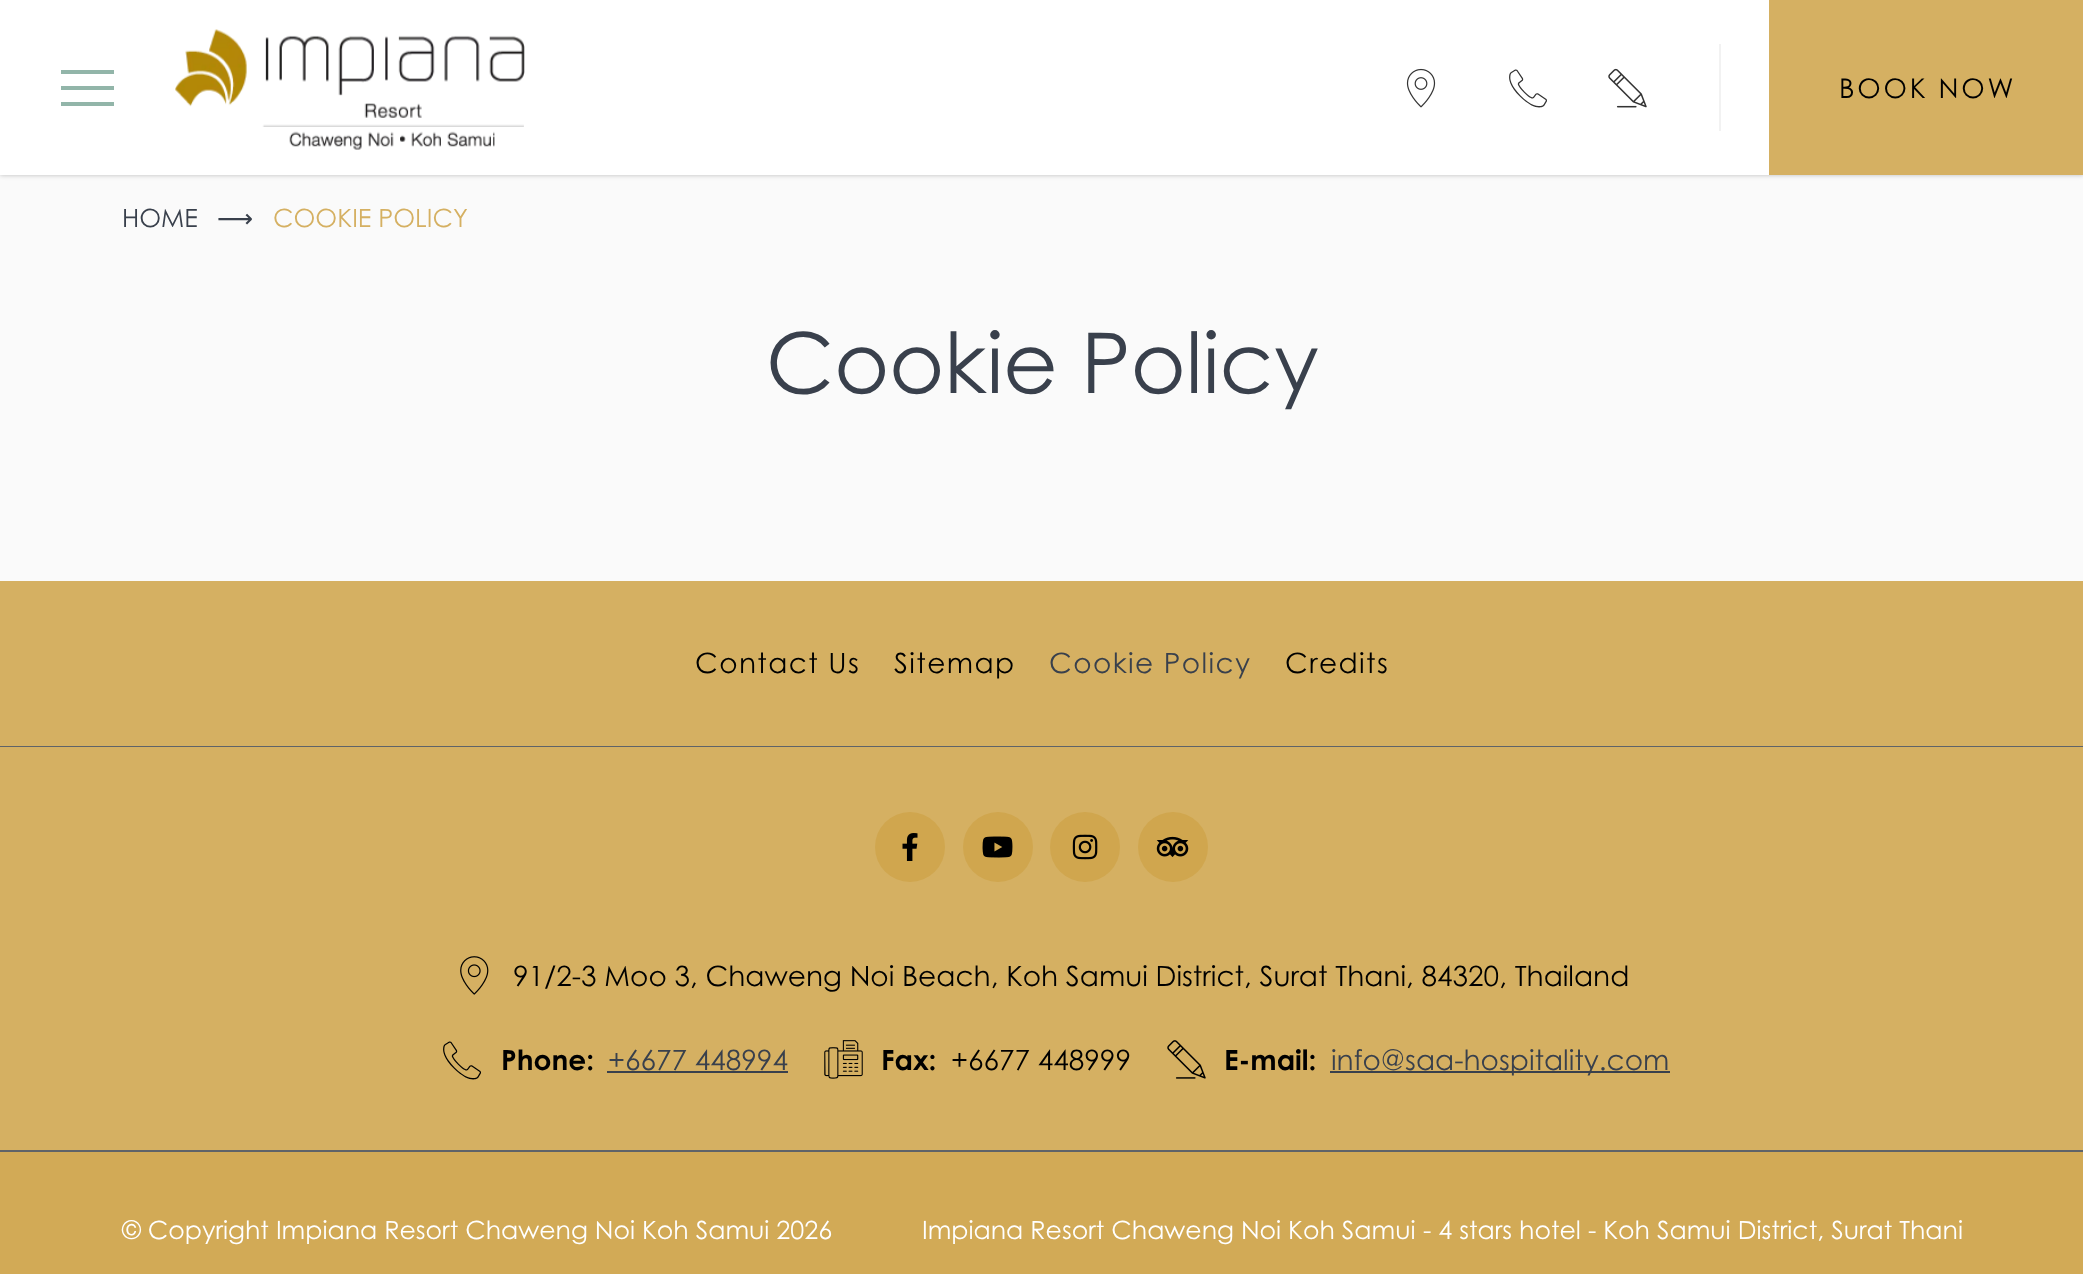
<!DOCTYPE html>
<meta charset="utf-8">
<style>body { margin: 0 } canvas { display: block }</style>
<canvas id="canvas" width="2083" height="1274"></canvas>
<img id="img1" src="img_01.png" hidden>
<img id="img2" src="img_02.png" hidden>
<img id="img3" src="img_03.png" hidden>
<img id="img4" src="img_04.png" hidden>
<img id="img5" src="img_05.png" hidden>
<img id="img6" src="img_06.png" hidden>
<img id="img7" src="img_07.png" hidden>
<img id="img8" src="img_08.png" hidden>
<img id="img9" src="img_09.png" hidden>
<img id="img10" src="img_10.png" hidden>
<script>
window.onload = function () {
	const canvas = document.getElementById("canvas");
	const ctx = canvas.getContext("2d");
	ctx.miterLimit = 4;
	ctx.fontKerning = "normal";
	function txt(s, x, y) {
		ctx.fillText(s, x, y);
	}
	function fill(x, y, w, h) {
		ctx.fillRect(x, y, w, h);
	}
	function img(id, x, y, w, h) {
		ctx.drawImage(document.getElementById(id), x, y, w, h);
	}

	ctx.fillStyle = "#FAFAFA";
	fill(0, 0, 2083, 1274);
	ctx.fillStyle = "rgba(0, 0, 0, 0.25)";
	ctx.filter = "blur(2.5px)";
	ctx.beginPath();
	ctx.rect(0, 0, 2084, 175);
	ctx.fill();
	ctx.filter = "none";
	ctx.fillStyle = "#FFFFFF";
	fill(0, 0, 1769, 175);
	ctx.fillStyle = "#92B5A9";
	fill(61, 70, 53, 4);
	fill(61, 102, 53, 4);
	fill(61, 86, 53, 4);
	img("img1", 175, 29, 350, 121);
	img("img2", 1406, 68, 30, 40);
	img("img3", 1608, 68, 39, 40);
	ctx.fillStyle = "#F2F2F2";
	fill(1719, 44, 2, 87);
	ctx.fillStyle = "#D5B062";
	fill(1769, 0, 314, 175);
	fill(0, 581, 2083, 165);
	ctx.fillStyle = "#5F6368";
	fill(0, 746, 2083, 1);
	ctx.fillStyle = "#D5B062";
	fill(0, 747, 2083, 403);
	ctx.fillStyle = "#5F6368";
	fill(0, 1150, 2083, 2);
	ctx.fillStyle = "#D0A64E";
	ctx.beginPath();
	ctx.arc(910, 847, 35, 0, Math.PI * 2);
	ctx.fill();
	img("img4", 902, 833, 16, 28);
	ctx.beginPath();
	ctx.arc(998, 847, 35, 0, Math.PI * 2);
	ctx.fill();
	img("img5", 982, 836, 31, 22);
	ctx.beginPath();
	ctx.arc(1085, 847, 35, 0, Math.PI * 2);
	ctx.fill();
	img("img6", 1072, 834, 26, 26);
	ctx.beginPath();
	ctx.arc(1173, 847, 35, 0, Math.PI * 2);
	ctx.fill();
	img("img7", 1156, 836, 33, 21);
	img("img8", 460, 956, 29, 39);
	ctx.fillStyle = "#39404C";
	fill(607, 1071, 181, 2);
	img("img9", 824, 1040, 39, 39);
	img("img10", 1167, 1040, 39, 39);
	fill(1330, 1071, 340, 2);
	ctx.fillStyle = "#D2AA56";
	fill(0, 1152, 2083, 122);
	ctx.font = "38px 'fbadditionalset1'";
	ctx.fillStyle = "#333333";
	txt("꬐", 1509, 105);
	ctx.letterSpacing = "2.75px";
	ctx.font = "27px Century Gothic";
	ctx.fillStyle = "#000000";
	txt("BOOK NOW", 1839, 98);
	ctx.letterSpacing = "0px";
	ctx.font = "25.2px Century Gothic";
	ctx.fillStyle = "#39404C";
	txt("HOME", 122, 227);
	ctx.font = "25.2px DejaVu Sans";
	txt("⟶", 217, 227);
	ctx.font = "25.2px Century Gothic";
	ctx.fillStyle = "#D5B062";
	txt("COOKIE POLICY", 273, 227);
	ctx.font = "84px Century Gothic";
	ctx.fillStyle = "#39404C";
	txt("Cookie Policy", 766, 393);
	ctx.letterSpacing = "1.4px";
	ctx.font = "28px Century Gothic";
	ctx.fillStyle = "#000000";
	txt("Contact Us", 695, 673);
	txt("Sitemap", 894, 673);
	ctx.fillStyle = "#39404C";
	txt("Cookie Policy", 1049, 673);
	ctx.fillStyle = "#000000";
	txt("Credits", 1285, 673);
	ctx.letterSpacing = "0px";
	txt("91/2-3 Moo 3, Chaweng Noi Beach, Koh Samui District, Surat Thani, 84320, Thailand", 513, 986);
	ctx.font = "38px 'fbadditionalset1'";
	txt("꬐", 443, 1077);
	ctx.font = "bold 28px Century Gothic";
	txt("Phone:", 501, 1070);
	ctx.font = "28px Century Gothic";
	ctx.fillStyle = "#39404C";
	txt("+6677 448994", 608, 1070);
	ctx.font = "bold 28px Century Gothic";
	ctx.fillStyle = "#000000";
	txt("Fax:", 881, 1070);
	ctx.font = "28px Century Gothic";
	txt("+6677 448999", 951, 1070);
	ctx.font = "bold 28px Century Gothic";
	txt("E-mail:", 1224, 1070);
	ctx.font = "28px Century Gothic";
	ctx.fillStyle = "#39404C";
	txt("info@saa-hospitality.com", 1331, 1070);
	ctx.font = "25.2px Century Gothic";
	ctx.fillStyle = "#FFFFFF";
	txt("© Copyright Impiana Resort Chaweng Noi Koh Samui 2026", 122, 1239);
	txt("Impiana Resort Chaweng Noi Koh Samui", 922, 1239);
	txt("- 4 stars hotel - Koh Samui District, Surat Thani", 1423, 1239);
};
</script>
